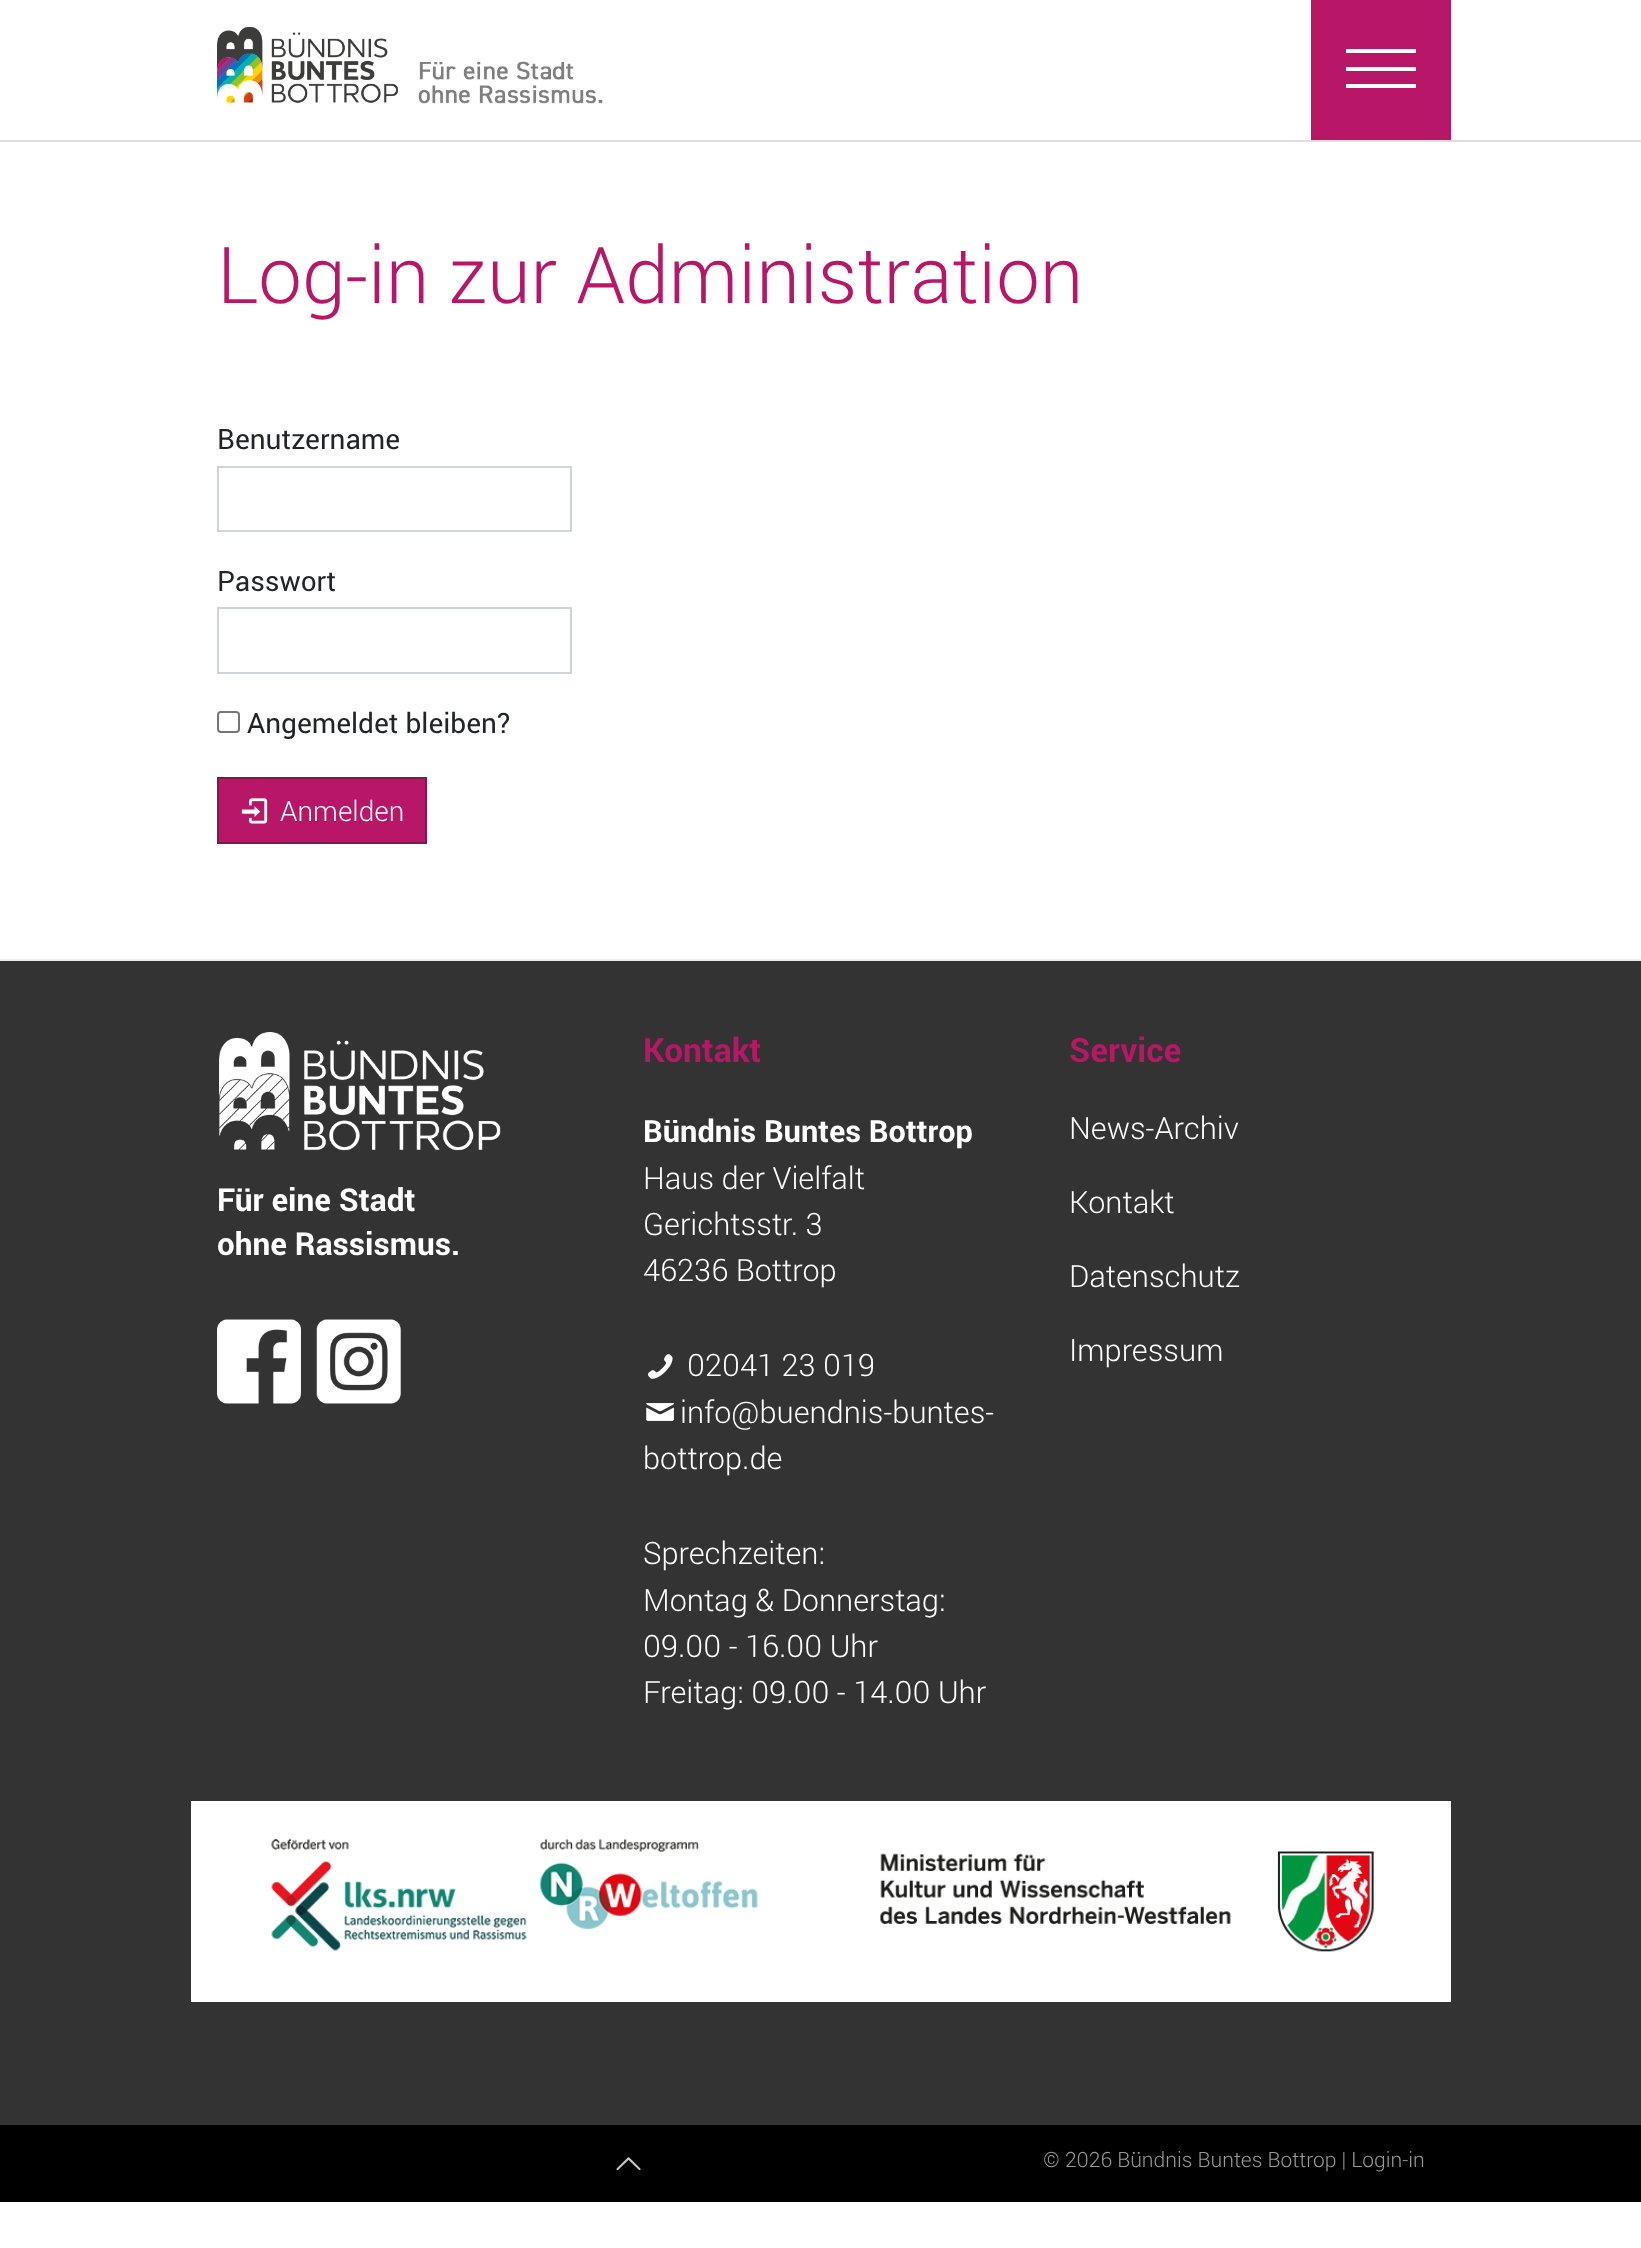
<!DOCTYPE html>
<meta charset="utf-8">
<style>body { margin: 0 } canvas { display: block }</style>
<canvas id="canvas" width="1641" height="2248"></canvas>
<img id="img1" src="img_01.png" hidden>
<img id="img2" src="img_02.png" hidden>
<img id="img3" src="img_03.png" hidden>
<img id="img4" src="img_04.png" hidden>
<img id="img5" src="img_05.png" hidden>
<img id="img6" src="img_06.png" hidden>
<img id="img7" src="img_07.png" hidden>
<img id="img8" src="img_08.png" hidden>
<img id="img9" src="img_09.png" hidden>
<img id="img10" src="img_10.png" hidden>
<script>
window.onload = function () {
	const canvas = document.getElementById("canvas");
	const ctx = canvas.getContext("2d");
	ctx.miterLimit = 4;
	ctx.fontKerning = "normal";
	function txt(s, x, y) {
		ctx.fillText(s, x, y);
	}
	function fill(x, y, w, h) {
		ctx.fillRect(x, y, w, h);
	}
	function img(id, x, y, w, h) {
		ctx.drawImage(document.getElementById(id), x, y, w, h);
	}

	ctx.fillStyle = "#FFFFFF";
	fill(0, 0, 1641, 2248);
	ctx.fillStyle = "#DDDDDD";
	fill(0, 140, 1641, 2);
	img("img1", 217, 27, 386, 77);
	ctx.fillStyle = "#B71766";
	fill(1311, 0, 140, 140);
	ctx.fillStyle = "#FFFFFF";
	fill(1346, 49, 70, 4);
	fill(1346, 67, 70, 4);
	fill(1346, 84, 70, 4);
	ctx.strokeStyle = "#CED4DA";
	ctx.lineWidth = 2;
	ctx.strokeRect(218, 467, 353, 64);
	ctx.strokeRect(218, 608, 353, 65);
	ctx.beginPath();
	ctx.roundRect(218, 712, 21, 20, 3);
	ctx.strokeStyle = "#767676";
	ctx.stroke();
	ctx.fillStyle = "#B71766";
	ctx.beginPath();
	ctx.rect(218, 778, 208, 65);
	ctx.fill();
	ctx.strokeStyle = "#83164C";
	ctx.stroke();
	img("img2", 241, 798, 27, 26);
	ctx.fillStyle = "#333333";
	fill(0, 961, 1641, 1164);
	ctx.fillStyle = "#EEEEEE";
	fill(0, 959, 1641, 2);
	img("img3", 219, 1032, 282, 119);
	img("img4", 217, 1319, 84, 85);
	img("img5", 316, 1319, 85, 85);
	img("img6", 648, 1354, 25, 25);
	img("img7", 646, 1403, 28, 18);
	ctx.fillStyle = "#FFFFFF";
	fill(191, 1801, 1260, 201);
	img("img8", 271, 1838, 487, 113);
	img("img9", 880, 1851, 494, 101);
	ctx.fillStyle = "#000000";
	fill(0, 2125, 1641, 77);
	img("img10", 616, 2157, 25, 14);
	ctx.font = "300 78.4px Roboto";
	ctx.fillStyle = "#B71766";
	txt("Log-in zur Administration", 217, 303);
	ctx.font = "28px Roboto";
	ctx.fillStyle = "#212529";
	txt("Benutzername", 217, 449);
	txt("Passwort", 217, 591);
	txt("Angemeldet bleiben?", 247, 733);
	ctx.font = "300 28px Roboto";
	ctx.fillStyle = "#FFFFFF";
	txt("Anmelden", 280, 821);
	ctx.font = "bold 31.5px Roboto";
	txt("Für eine Stadt", 217, 1211);
	txt("ohne Rassismus.", 217, 1255);
	ctx.font = "bold 33.5px Roboto";
	ctx.fillStyle = "#B71766";
	txt("Kontakt", 643, 1062);
	ctx.font = "bold 30.75px Roboto";
	ctx.fillStyle = "#FFFFFF";
	txt("Bündnis Buntes Bottrop", 643, 1142);
	ctx.font = "300 30.75px Roboto";
	txt("Haus der Vielfalt", 643, 1189);
	txt("Gerichtsstr. 3", 643, 1235);
	txt("46236 Bottrop", 643, 1281);
	txt("02041 23 019", 687, 1376);
	txt("info@buendnis-buntes-", 680, 1423);
	txt("bottrop.de", 643, 1469);
	txt("Sprechzeiten:", 643, 1564);
	txt("Montag & Donnerstag:", 643, 1611);
	txt("09.00 - 16.00 Uhr", 643, 1657);
	txt("Freitag: 09.00 - 14.00 Uhr", 643, 1703);
	ctx.font = "bold 33.5px Roboto";
	ctx.fillStyle = "#B71766";
	txt("Service", 1069, 1062);
	ctx.font = "300 30.75px Roboto";
	ctx.fillStyle = "#FFFFFF";
	txt("News-Archiv", 1069, 1139);
	txt("Kontakt", 1069, 1213);
	txt("Datenschutz", 1069, 1287);
	txt("Impressum", 1069, 1361);
	ctx.font = "300 21px Roboto";
	ctx.fillStyle = "#999999";
	txt("© 2026 Bündnis Buntes Bottrop | Login-in", 1043, 2167);
};
</script>
